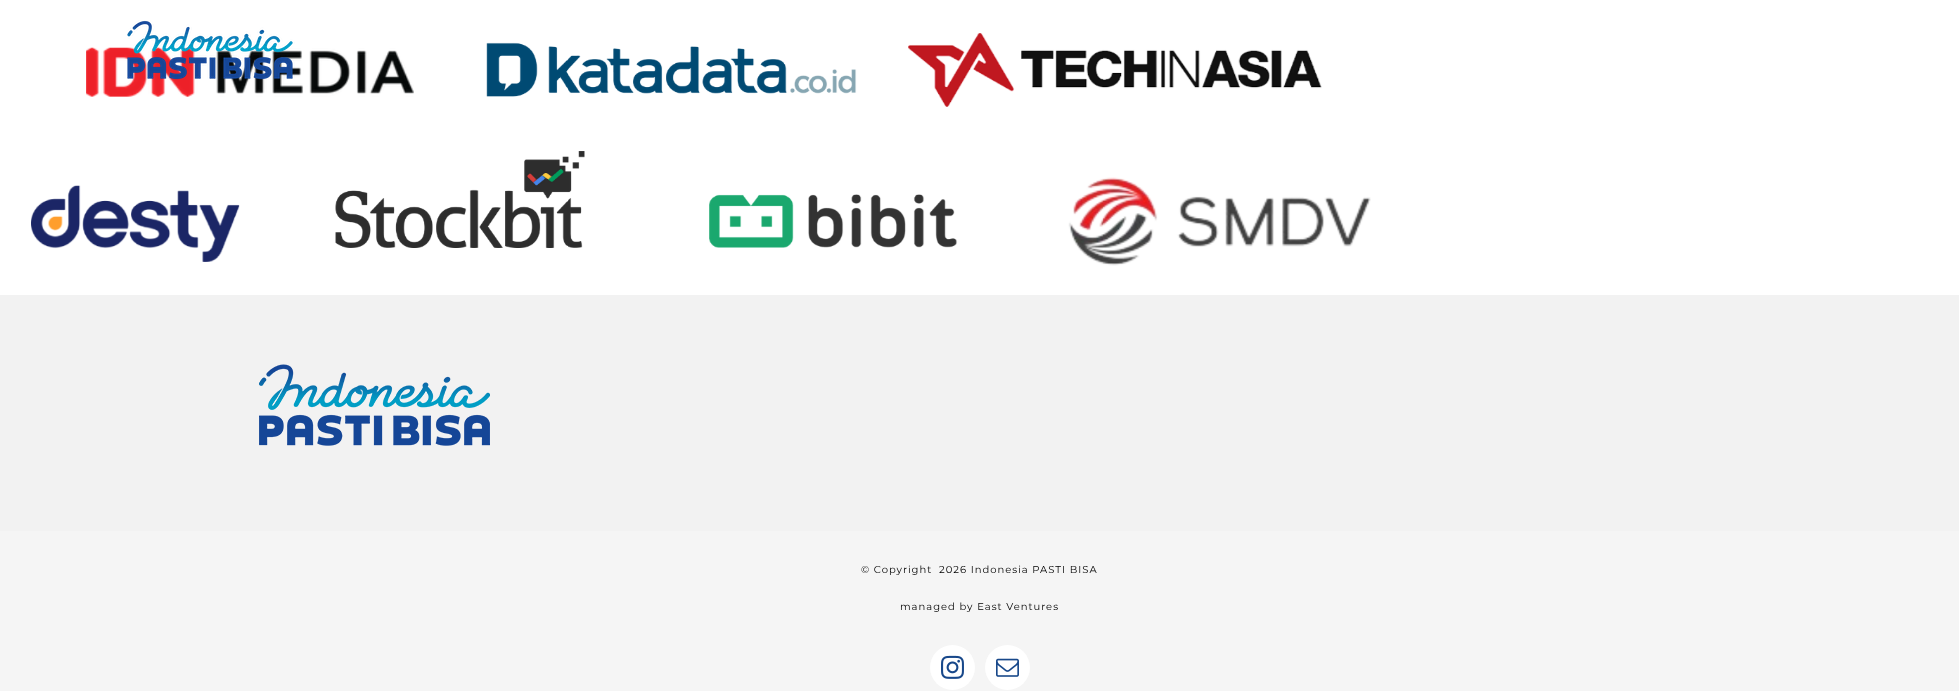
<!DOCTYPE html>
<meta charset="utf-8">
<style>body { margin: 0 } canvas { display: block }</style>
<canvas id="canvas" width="1959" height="691"></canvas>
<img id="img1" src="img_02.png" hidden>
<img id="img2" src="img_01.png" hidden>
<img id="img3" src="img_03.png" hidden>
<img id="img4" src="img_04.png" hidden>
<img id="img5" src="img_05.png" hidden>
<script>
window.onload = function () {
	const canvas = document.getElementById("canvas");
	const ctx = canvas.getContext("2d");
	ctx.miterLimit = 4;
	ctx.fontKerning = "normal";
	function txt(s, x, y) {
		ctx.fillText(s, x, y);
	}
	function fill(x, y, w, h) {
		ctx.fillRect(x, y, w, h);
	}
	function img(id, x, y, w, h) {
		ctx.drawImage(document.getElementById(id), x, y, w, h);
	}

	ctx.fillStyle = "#FFFFFF";
	fill(0, 0, 1959, 691);
	img("img1", 31, 33, 1340, 233);
	img("img2", 127, 20, 168, 60);
	ctx.fillStyle = "#F2F2F2";
	fill(0, 295, 1959, 236);
	img("img3", 259, 364, 231, 82);
	ctx.fillStyle = "#F5F5F5";
	fill(0, 531, 1959, 160);
	ctx.fillStyle = "#FFFFFF";
	ctx.beginPath();
	ctx.arc(952.5, 667.5, 22.5, 0, Math.PI * 2);
	ctx.fill();
	img("img4", 941, 655, 23, 24);
	ctx.beginPath();
	ctx.arc(1007.5, 667.5, 22.5, 0, Math.PI * 2);
	ctx.fill();
	img("img5", 996, 658, 23, 19);
	ctx.letterSpacing = "1px";
	ctx.font = "100 10px Montserrat";
	ctx.fillStyle = "#000000";
	txt("© Copyright", 861, 573);
	txt("2026 Indonesia PASTI BISA", 939, 573);
	txt("managed by East Ventures", 900, 610);
};
</script>
